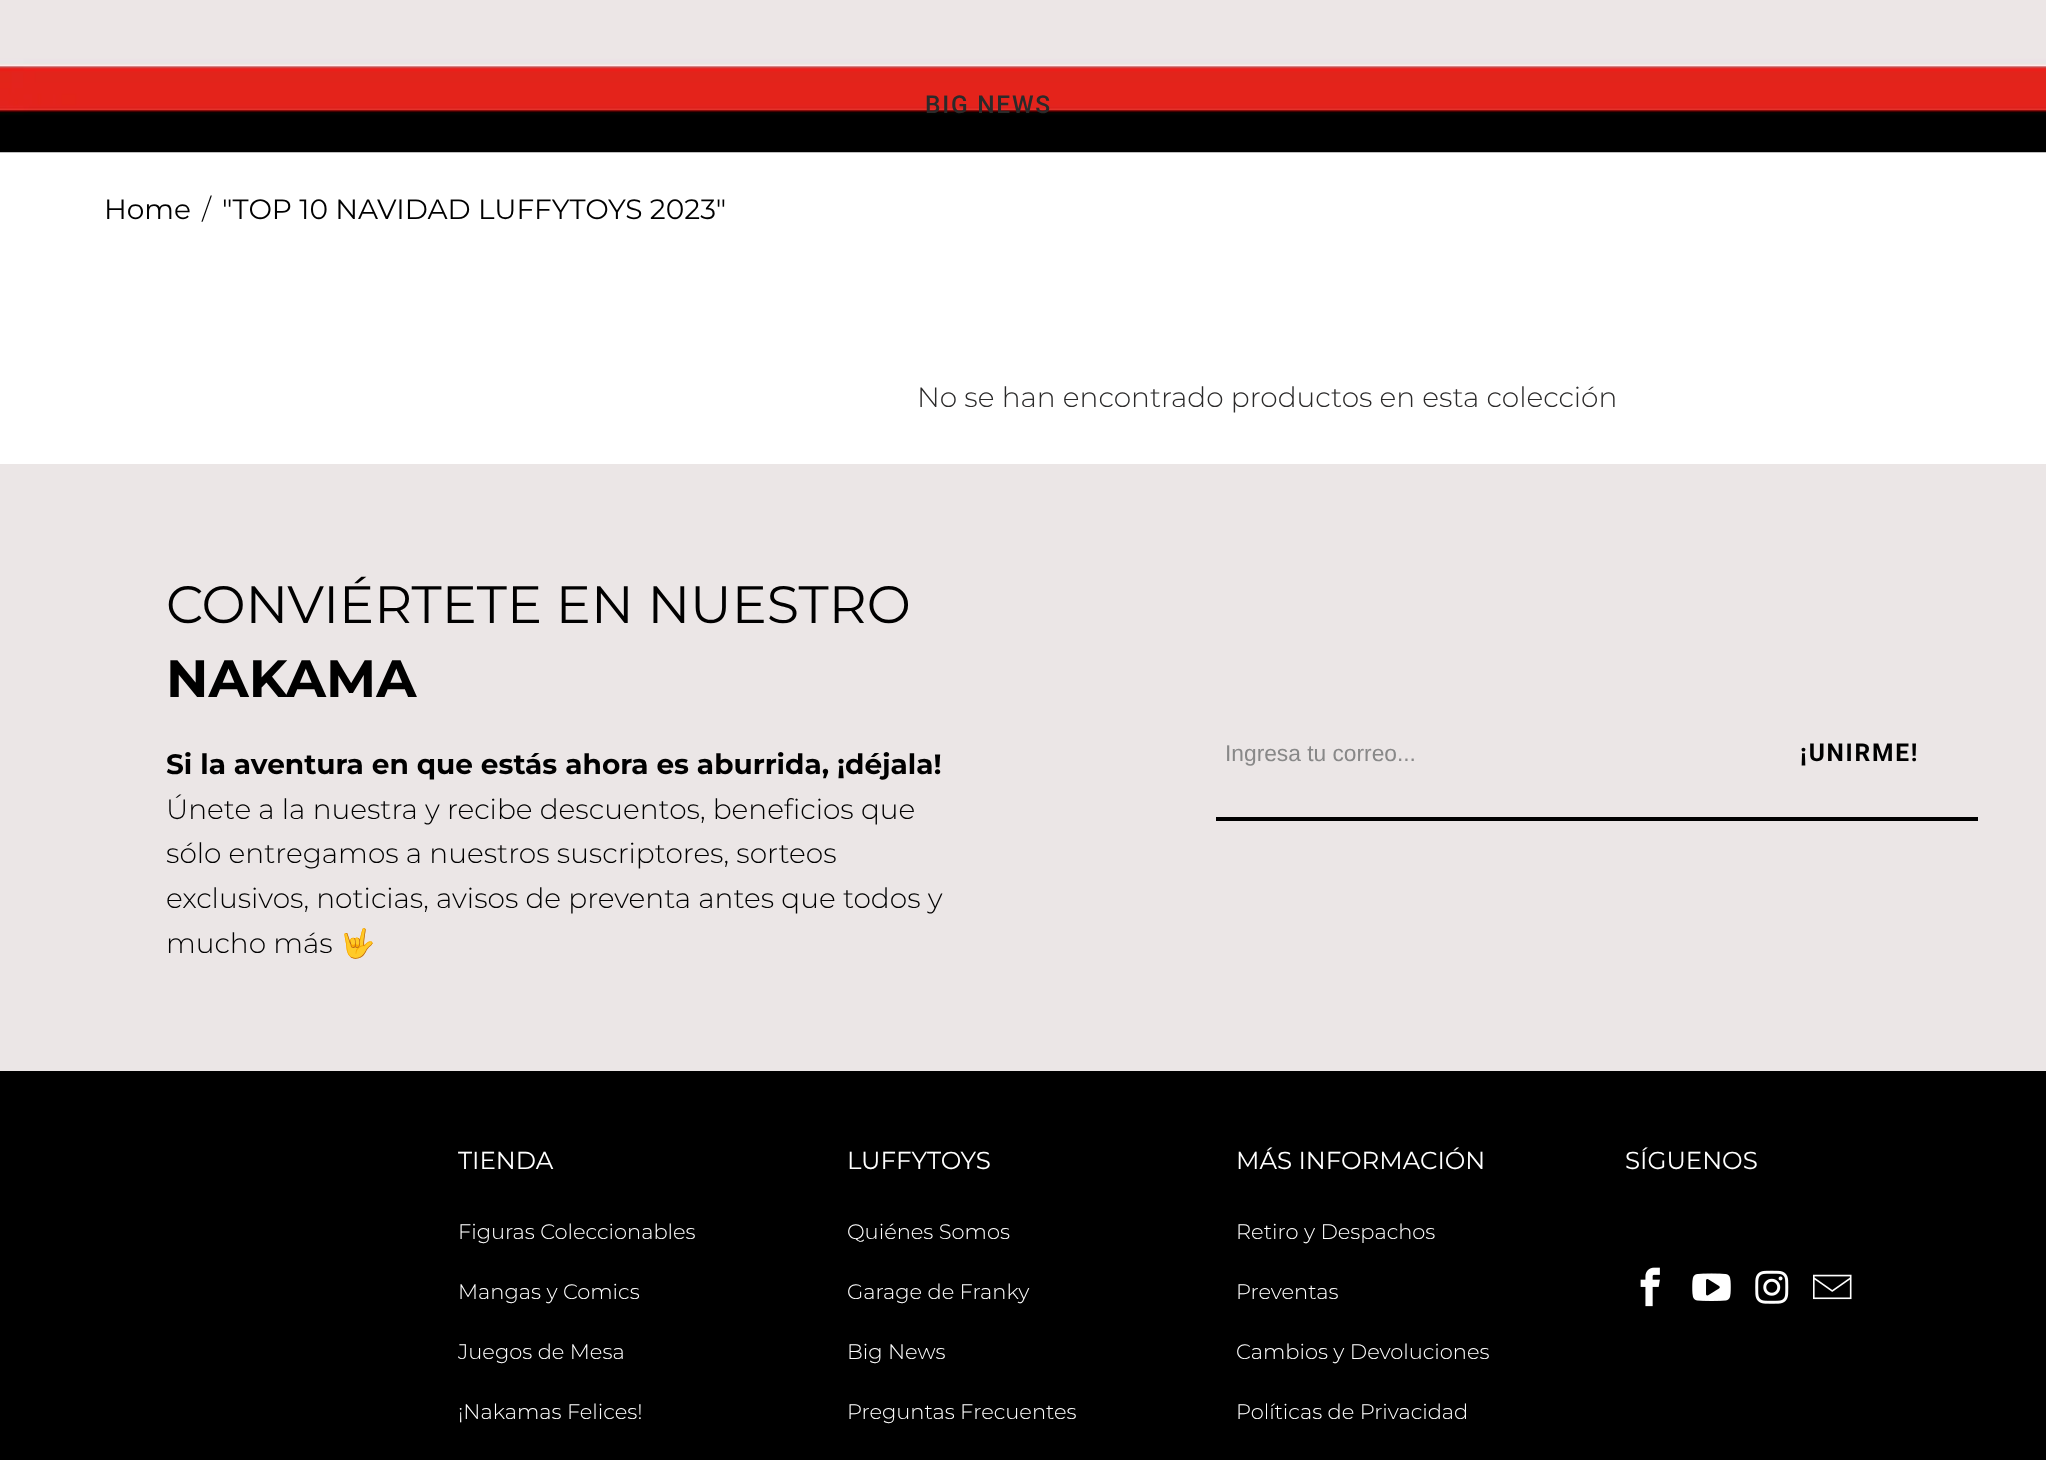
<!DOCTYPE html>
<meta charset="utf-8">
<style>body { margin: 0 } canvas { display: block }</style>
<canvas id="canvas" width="2046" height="1460"></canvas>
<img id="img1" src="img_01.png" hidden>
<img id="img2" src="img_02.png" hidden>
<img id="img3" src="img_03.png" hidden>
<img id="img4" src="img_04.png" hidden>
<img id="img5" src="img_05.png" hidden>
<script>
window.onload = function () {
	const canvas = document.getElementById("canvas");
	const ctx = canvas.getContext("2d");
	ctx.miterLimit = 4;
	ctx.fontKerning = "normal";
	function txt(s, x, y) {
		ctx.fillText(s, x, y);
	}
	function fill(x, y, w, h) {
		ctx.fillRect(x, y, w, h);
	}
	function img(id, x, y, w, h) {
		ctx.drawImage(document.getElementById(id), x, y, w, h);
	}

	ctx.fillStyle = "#FFFFFF";
	fill(0, 0, 2046, 1460);
	img("img1", 0, 0, 2046, 153);
	ctx.fillStyle = "#EBE6E6";
	fill(0, 464, 2046, 607);
	ctx.fillStyle = "#000000";
	fill(1216, 817, 762, 4);
	fill(0, 1071, 2046, 389);
	img("img2", 1640, 1267, 20, 40);
	img("img3", 1692, 1273, 39, 28);
	img("img4", 1755, 1270, 34, 34);
	img("img5", 1813, 1274, 39, 26);
	ctx.letterSpacing = "1.75px";
	ctx.font = "500 24.5px Roboto";
	ctx.fillStyle = "#2B2A2A";
	txt("BIG NEWS", 925, 113);
	ctx.letterSpacing = "0px";
	ctx.font = "28px Montserrat";
	ctx.fillStyle = "#000000";
	txt("Home", 104, 219);
	ctx.font = "300 28px Montserrat";
	txt("/", 202, 219);
	ctx.font = "28px Montserrat";
	txt("\"TOP 10 NAVIDAD LUFFYTOYS 2023\"", 222, 219);
	ctx.font = "300 28px Montserrat";
	ctx.fillStyle = "#2B2A2A";
	txt("No se han encontrado productos en esta colección", 917, 407);
	ctx.font = "52.5px Montserrat";
	ctx.fillStyle = "#000000";
	txt("CONVIÉRTETE EN NUESTRO", 166, 623);
	ctx.font = "bold 52.5px Montserrat";
	txt("NAKAMA", 166, 697);
	ctx.font = "bold 28px Montserrat";
	txt("Si la aventura en que estás ahora es aburrida, ¡déjala!", 166, 774);
	ctx.font = "300 28px Montserrat";
	txt("Únete a la nuestra y recibe descuentos, beneficios que", 166, 819);
	txt("sólo entregamos a nuestros suscriptores, sorteos", 166, 863);
	txt("exclusivos, noticias, avisos de preventa antes que todos y", 166, 908);
	txt("mucho más", 166, 953);
	ctx.font = "28px Noto Color Emoji";
	txt("🤟", 340, 953);
	ctx.font = "22.75px Liberation Sans";
	ctx.fillStyle = "#888888";
	txt("Ingresa tu correo...", 1225, 761);
	ctx.letterSpacing = "1.75px";
	ctx.font = "bold 24.5px Roboto";
	ctx.fillStyle = "#000000";
	txt("¡UNIRME!", 1800, 761);
	ctx.letterSpacing = "0px";
	ctx.font = "24.5px Montserrat";
	ctx.fillStyle = "#FFFFFF";
	txt("TIENDA", 458, 1169);
	ctx.font = "300 21px Montserrat";
	txt("Figuras Coleccionables", 458, 1239);
	txt("Mangas y Comics", 458, 1299);
	txt("Juegos de Mesa", 458, 1359);
	txt("¡Nakamas Felices!", 458, 1419);
	ctx.font = "24.5px Montserrat";
	txt("LUFFYTOYS", 847, 1169);
	ctx.font = "300 21px Montserrat";
	txt("Quiénes Somos", 847, 1239);
	txt("Garage de Franky", 847, 1299);
	txt("Big News", 847, 1359);
	txt("Preguntas Frecuentes", 847, 1419);
	ctx.font = "24.5px Montserrat";
	txt("MÁS INFORMACIÓN", 1236, 1169);
	ctx.font = "300 21px Montserrat";
	txt("Retiro y Despachos", 1236, 1239);
	txt("Preventas", 1236, 1299);
	txt("Cambios y Devoluciones", 1236, 1359);
	txt("Políticas de Privacidad", 1236, 1419);
	ctx.font = "24.5px Montserrat";
	txt("SÍGUENOS", 1625, 1169);
};
</script>
